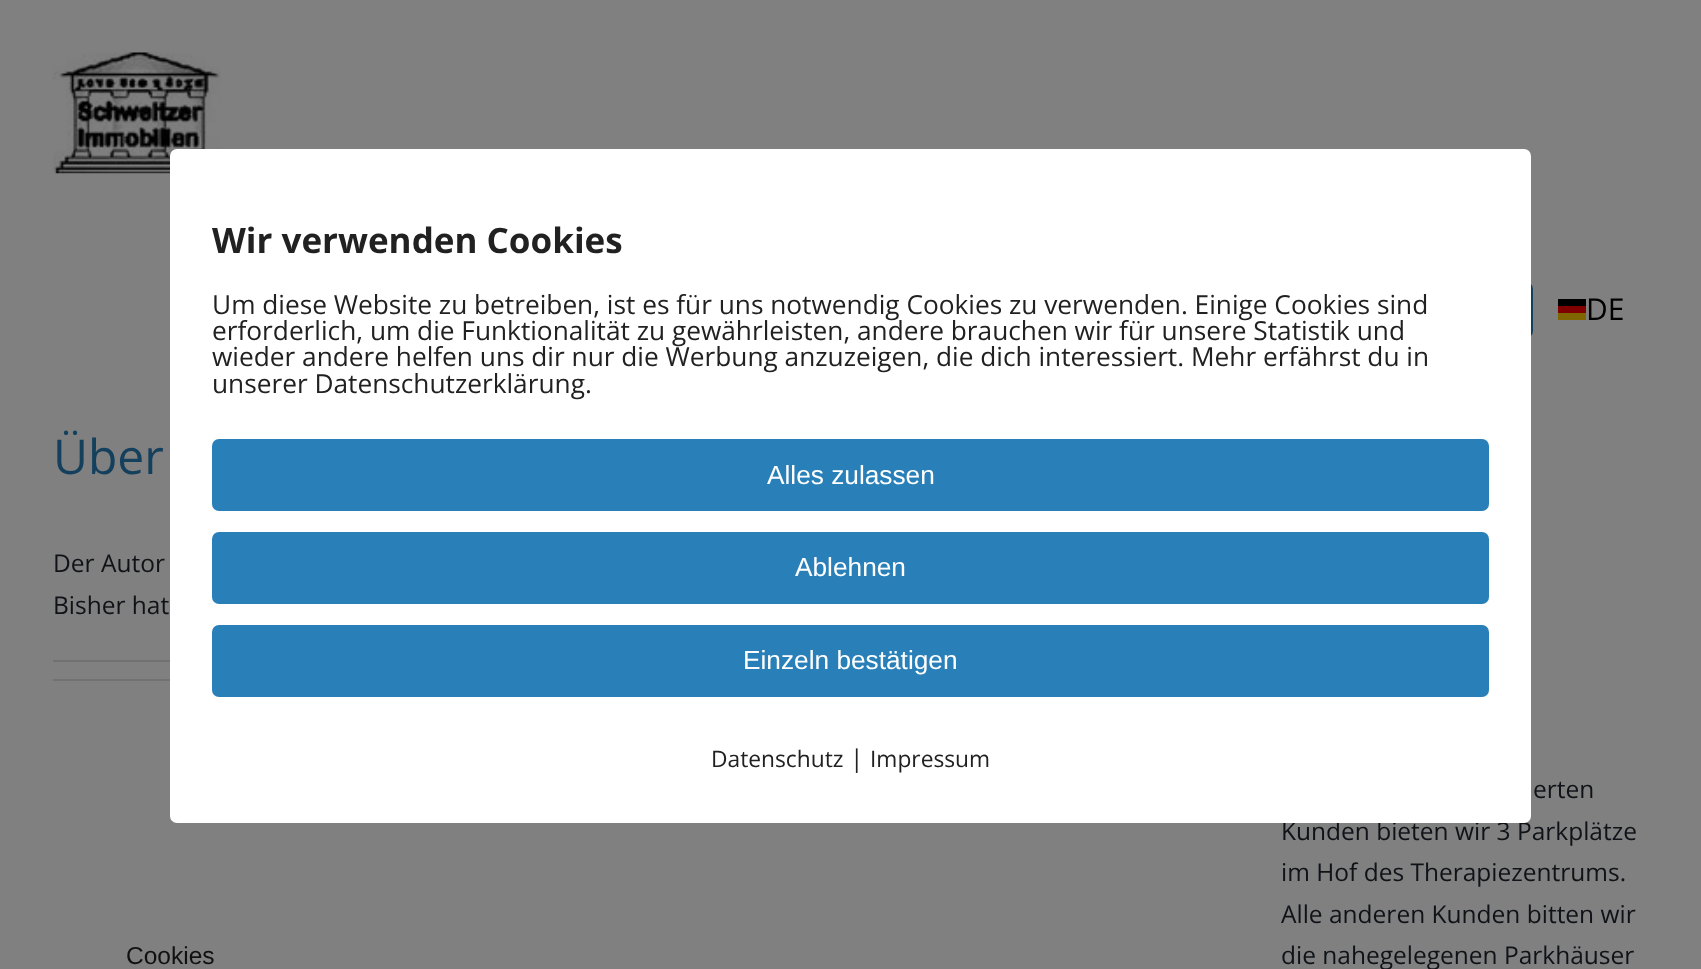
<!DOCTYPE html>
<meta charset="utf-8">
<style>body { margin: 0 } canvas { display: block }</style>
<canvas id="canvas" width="1701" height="969"></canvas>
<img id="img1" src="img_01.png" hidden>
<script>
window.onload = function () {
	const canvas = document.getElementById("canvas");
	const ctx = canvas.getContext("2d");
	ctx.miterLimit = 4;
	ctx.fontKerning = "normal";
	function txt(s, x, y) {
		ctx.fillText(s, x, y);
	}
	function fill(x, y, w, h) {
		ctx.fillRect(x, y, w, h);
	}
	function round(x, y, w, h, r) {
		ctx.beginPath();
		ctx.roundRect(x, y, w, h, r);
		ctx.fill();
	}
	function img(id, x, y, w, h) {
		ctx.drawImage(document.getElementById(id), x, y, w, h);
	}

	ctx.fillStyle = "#808080";
	fill(0, 0, 1701, 969);
	img("img1", 52, 52, 174, 122);
	ctx.fillStyle = "#15405D";
	round(1295, 282, 238, 56, 7);
	ctx.fillStyle = "#806600";
	fill(1558, 313, 28, 7);
	ctx.fillStyle = "#000000";
	fill(1558, 299, 28, 7);
	ctx.fillStyle = "#800000";
	fill(1558, 306, 28, 7);
	ctx.fillStyle = "#717171";
	fill(53, 660, 117, 2);
	fill(53, 679, 117, 2);
	ctx.font = "30px Open Sans";
	ctx.fillStyle = "#000000";
	txt("DE", 1586, 320);
	ctx.font = "48px Open Sans";
	ctx.fillStyle = "#15405D";
	txt("Über", 53, 474);
	ctx.font = "24.5px Open Sans";
	ctx.fillStyle = "#0F1217";
	txt("Der Autor", 53, 572);
	txt("Bisher hat", 53, 614);
	txt("erten", 1533, 798);
	txt("Kunden bieten wir 3 Parkplätze", 1281, 840);
	ctx.fillStyle = "#FFFFFF";
	round(170, 149, 1361, 674, 7);
	ctx.font = "22.75px Open Sans";
	ctx.fillStyle = "#212121";
	txt("Impressum", 870, 767);
	ctx.font = "24.5px Open Sans";
	txt("|", 850, 767);
	ctx.font = "22.75px Open Sans";
	txt("Datenschutz", 711, 767);
	ctx.fillStyle = "#2980B9";
	round(212, 625, 1277, 72, 7);
	ctx.font = "26.25px Liberation Sans";
	ctx.fillStyle = "#FFFFFF";
	txt("Einzeln bestätigen", 743, 669);
	ctx.fillStyle = "#2980B9";
	round(212, 532, 1277, 72, 7);
	ctx.fillStyle = "#FFFFFF";
	txt("Ablehnen", 795, 576);
	ctx.fillStyle = "#2980B9";
	round(212, 439, 1277, 72, 7);
	ctx.fillStyle = "#FFFFFF";
	txt("Alles zulassen", 767, 484);
	ctx.font = "26.25px Open Sans";
	ctx.fillStyle = "#212121";
	txt("unserer Datenschutzerklärung.", 212, 393);
	txt("wieder andere helfen uns dir nur die Werbung anzuzeigen, die dich interessiert. Mehr erfährst du in", 212, 366);
	txt("erforderlich, um die Funktionalität zu gewährleisten, andere brauchen wir für unsere Statistik und", 212, 340);
	txt("Um diese Website zu betreiben, ist es für uns notwendig Cookies zu verwenden. Einige Cookies sind", 212, 314);
	ctx.font = "bold 35px Open Sans";
	txt("Wir verwenden Cookies", 212, 253);
	ctx.font = "24.5px Open Sans";
	ctx.fillStyle = "#0F1217";
	txt("im Hof des Therapiezentrums.", 1281, 881);
	txt("Alle anderen Kunden bitten wir", 1281, 923);
	txt("die nahegelegenen Parkhäuser", 1281, 964);
	ctx.font = "24.5px Liberation Sans";
	ctx.fillStyle = "#111111";
	txt("Cookies", 126, 964);
};
</script>
